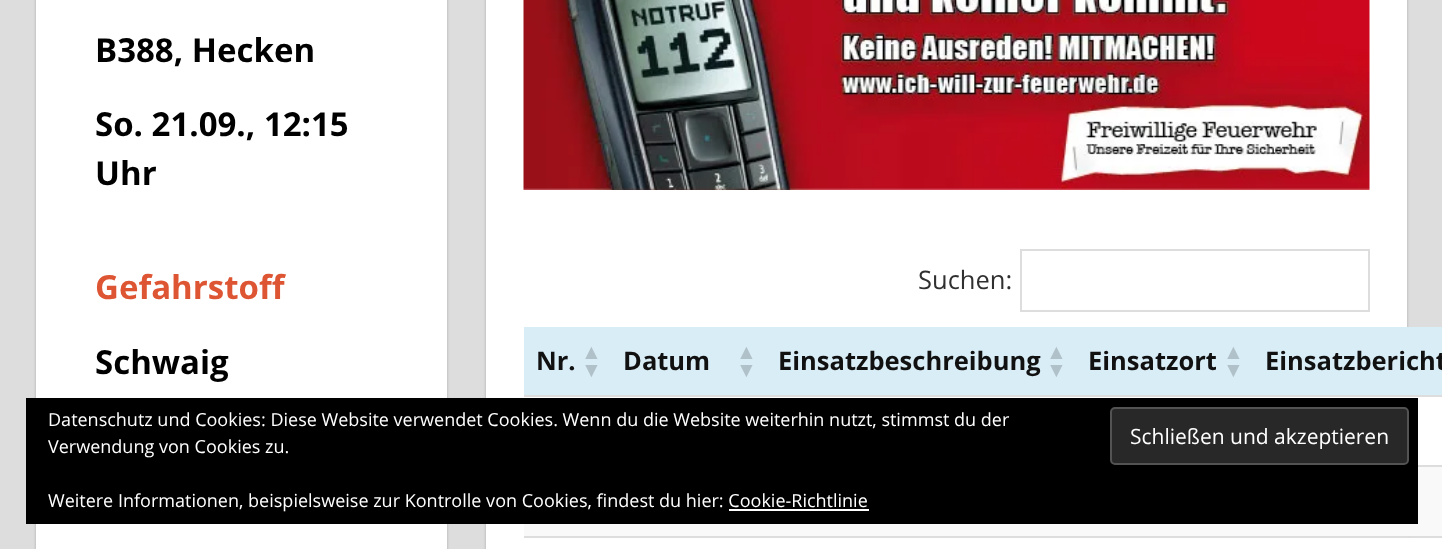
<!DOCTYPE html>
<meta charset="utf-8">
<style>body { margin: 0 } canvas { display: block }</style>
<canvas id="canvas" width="1442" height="549"></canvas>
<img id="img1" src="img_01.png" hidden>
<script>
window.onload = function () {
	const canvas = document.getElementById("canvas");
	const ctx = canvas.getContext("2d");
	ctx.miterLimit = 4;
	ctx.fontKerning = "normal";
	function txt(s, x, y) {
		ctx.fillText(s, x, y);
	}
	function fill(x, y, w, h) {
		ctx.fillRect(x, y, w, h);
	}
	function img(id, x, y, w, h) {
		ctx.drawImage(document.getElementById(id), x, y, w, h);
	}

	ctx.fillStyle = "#DDDDDD";
	fill(0, 0, 1442, 549);
	ctx.fillStyle = "#AAAAAA";
	ctx.filter = "blur(1.5px)";
	ctx.beginPath();
	ctx.rect(36, -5, 411, 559);
	ctx.fill();
	ctx.filter = "none";
	ctx.fillStyle = "#FFFFFF";
	fill(36, 0, 411, 549);
	ctx.fillStyle = "#AAAAAA";
	ctx.filter = "blur(1.5px)";
	ctx.beginPath();
	ctx.rect(486, -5, 921, 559);
	ctx.fill();
	ctx.filter = "none";
	ctx.fillStyle = "#FFFFFF";
	fill(486, 0, 921, 549);
	img("img1", 523, 0, 847, 190);
	ctx.strokeStyle = "#DDDDDD";
	ctx.lineWidth = 2;
	ctx.strokeRect(1021, 250, 348, 61);
	ctx.fillStyle = "#D9EDF7";
	fill(524, 327, 918, 68);
	ctx.fillStyle = "#FFFFFF";
	fill(1407, 397, 35, 68);
	ctx.fillStyle = "#DDDDDD";
	fill(524, 395, 885, 2);
	ctx.fillStyle = "#F9F9F9";
	fill(524, 524, 729, 12);
	fill(1253, 467, 189, 69);
	ctx.fillStyle = "#FFFFFF";
	fill(1407, 538, 35, 11);
	ctx.fillStyle = "#DDDDDD";
	fill(524, 536, 885, 2);
	ctx.fillStyle = "#000000";
	fill(26, 398, 1392, 126);
	ctx.fillStyle = "#282828";
	ctx.beginPath();
	ctx.roundRect(1111, 408, 297, 56, 4);
	ctx.fill();
	ctx.strokeStyle = "#535353";
	ctx.stroke();
	ctx.fillStyle = "#FFFFFF";
	fill(729, 509, 140, 2);
	ctx.font = "bold 33px Open Sans";
	ctx.fillStyle = "#000000";
	txt("B388, Hecken", 95, 62);
	txt("So. 21.09., 12:15", 95, 136);
	txt("Uhr", 95, 185);
	ctx.fillStyle = "#DD5533";
	txt("Gefahrstoff", 95, 299);
	ctx.fillStyle = "#000000";
	txt("Schwaig", 95, 374);
	ctx.font = "25.5px Open Sans";
	ctx.fillStyle = "#303030";
	txt("Suchen:", 918, 289);
	ctx.font = "bold 25.5px Open Sans";
	ctx.fillStyle = "#111111";
	txt("Nr.", 536, 370);
	ctx.font = "bold 21px Liberation Sans";
	ctx.fillStyle = "#B1C1C9";
	txt("▲", 581, 359);
	txt("▼", 581, 377);
	ctx.font = "bold 25.5px Open Sans";
	ctx.fillStyle = "#111111";
	txt("Datum", 623, 370);
	ctx.font = "bold 21px Liberation Sans";
	ctx.fillStyle = "#B1C1C9";
	txt("▲", 736, 359);
	txt("▼", 736, 377);
	ctx.font = "bold 25.5px Open Sans";
	ctx.fillStyle = "#111111";
	txt("Einsatzbeschreibung", 778, 370);
	ctx.font = "bold 21px Liberation Sans";
	ctx.fillStyle = "#B1C1C9";
	txt("▲", 1046, 359);
	txt("▼", 1046, 377);
	ctx.font = "bold 25.5px Open Sans";
	ctx.fillStyle = "#111111";
	txt("Einsatzort", 1088, 370);
	ctx.font = "bold 21px Liberation Sans";
	ctx.fillStyle = "#B1C1C9";
	txt("▲", 1223, 359);
	txt("▼", 1223, 377);
	ctx.font = "bold 25.5px Open Sans";
	ctx.fillStyle = "#111111";
	txt("Einsatzbericht", 1265, 370);
	ctx.font = "18px Open Sans";
	ctx.fillStyle = "#FFFFFF";
	txt("Datenschutz und Cookies: Diese Website verwendet Cookies. Wenn du die Website weiterhin nutzt, stimmst du der", 48, 426);
	txt("Verwendung von Cookies zu.", 48, 453);
	ctx.font = "21px Open Sans";
	txt("Schließen und akzeptieren", 1130, 444);
	ctx.font = "18px Open Sans";
	txt("Weitere Informationen, beispielsweise zur Kontrolle von Cookies, findest du hier: Cookie-Richtlinie", 48, 507);
};
</script>
